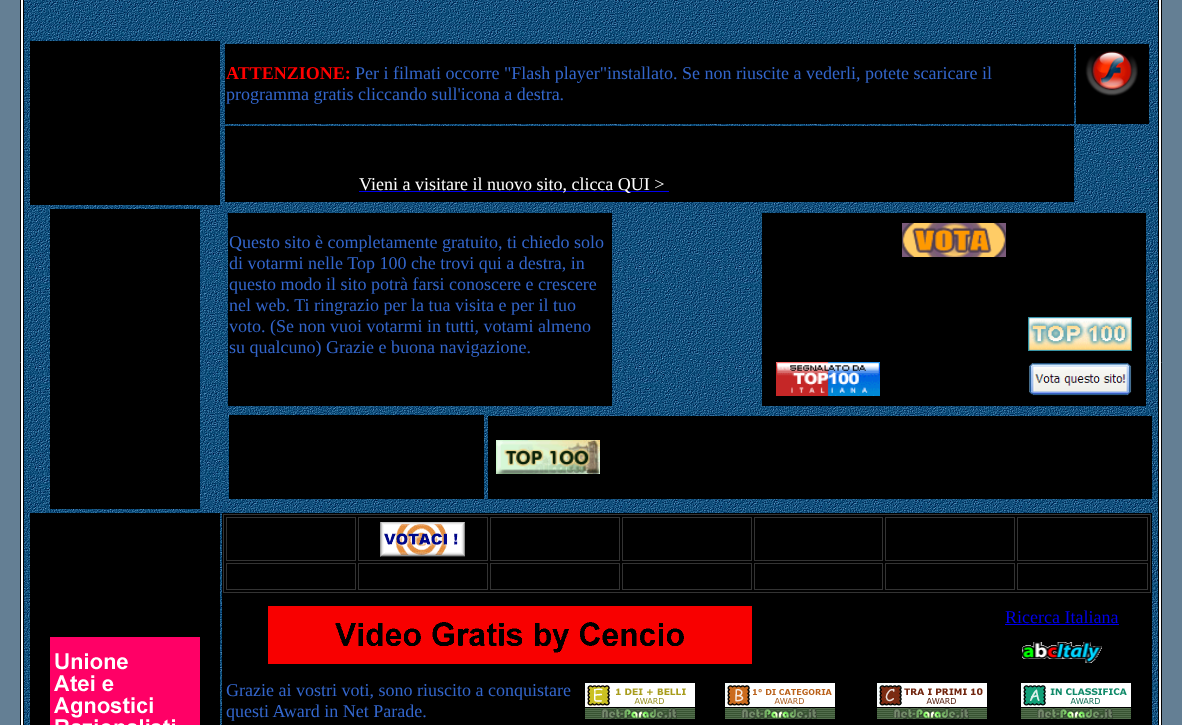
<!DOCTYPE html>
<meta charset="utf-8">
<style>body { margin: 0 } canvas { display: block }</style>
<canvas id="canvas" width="1182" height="725"></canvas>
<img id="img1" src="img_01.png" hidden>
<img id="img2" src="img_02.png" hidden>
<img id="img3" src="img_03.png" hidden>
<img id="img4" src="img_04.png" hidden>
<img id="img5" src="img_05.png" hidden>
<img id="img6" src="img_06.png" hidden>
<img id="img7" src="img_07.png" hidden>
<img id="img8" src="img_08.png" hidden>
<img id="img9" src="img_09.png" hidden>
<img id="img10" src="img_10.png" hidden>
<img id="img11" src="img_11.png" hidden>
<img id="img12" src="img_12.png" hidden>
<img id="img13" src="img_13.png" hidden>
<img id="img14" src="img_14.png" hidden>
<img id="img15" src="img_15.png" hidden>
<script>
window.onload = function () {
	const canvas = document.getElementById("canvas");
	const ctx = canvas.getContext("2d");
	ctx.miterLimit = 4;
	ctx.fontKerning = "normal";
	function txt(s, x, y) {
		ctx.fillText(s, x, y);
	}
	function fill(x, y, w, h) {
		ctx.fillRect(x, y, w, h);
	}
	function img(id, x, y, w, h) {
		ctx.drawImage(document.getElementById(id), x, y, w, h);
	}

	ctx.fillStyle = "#647F94";
	fill(0, 0, 1182, 725);
	ctx.fillStyle = "#FFFFFF";
	ctx.beginPath();
	ctx.rect(20.5, -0.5, 1141, 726);
	ctx.fill();
	ctx.strokeStyle = "#000000";
	ctx.stroke();
	img("img1", 24, 0, 1134, 725);
	ctx.strokeRect(23.5, -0.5, 1135, 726);
	ctx.fillStyle = "#000000";
	fill(30, 41, 190, 164);
	fill(225, 44, 849, 80);
	fill(1076, 44, 73, 80);
	img("img2", 1085, 51, 53, 45);
	fill(225, 126, 849, 76);
	ctx.fillStyle = "#0000EE";
	fill(359, 191, 310, 1);
	ctx.fillStyle = "#000000";
	fill(50, 209, 150, 300);
	fill(228, 213, 384, 193);
	fill(762, 213, 384, 193);
	img("img3", 902, 223, 104, 34);
	img("img4", 1028, 317, 104, 34);
	img("img5", 776, 362, 104, 34);
	img("img6", 1029, 363, 103, 33);
	fill(229, 415, 255, 84);
	fill(488, 416, 664, 83);
	img("img7", 496, 440, 104, 34);
	fill(30, 513, 190, 212);
	img("img8", 50, 637, 150, 88);
	fill(222, 513, 930, 212);
	ctx.strokeStyle = "#333333";
	ctx.strokeRect(223.5, 514.5, 927, 78);
	ctx.strokeRect(226.5, 517.5, 129, 43);
	ctx.strokeRect(358.5, 517.5, 129, 43);
	img("img9", 380, 522, 85, 35);
	ctx.strokeRect(490.5, 517.5, 129, 43);
	ctx.strokeRect(622.5, 517.5, 129, 43);
	ctx.strokeRect(754.5, 517.5, 128, 43);
	ctx.strokeRect(885.5, 517.5, 129, 43);
	ctx.strokeRect(1017.5, 517.5, 130, 43);
	ctx.strokeRect(226.5, 563.5, 129, 26);
	ctx.strokeRect(358.5, 563.5, 129, 26);
	ctx.strokeRect(490.5, 563.5, 129, 26);
	ctx.strokeRect(622.5, 563.5, 129, 26);
	ctx.strokeRect(754.5, 563.5, 128, 26);
	ctx.strokeRect(885.5, 563.5, 129, 26);
	ctx.strokeRect(1017.5, 563.5, 130, 26);
	img("img10", 268, 606, 484, 58);
	ctx.fillStyle = "#0000EE";
	fill(1005, 624, 114, 1);
	img("img11", 1022, 642, 80, 21);
	img("img12", 585, 683, 110, 36);
	img("img13", 725, 683, 110, 36);
	img("img14", 877, 683, 110, 36);
	img("img15", 1021, 683, 110, 36);
	ctx.font = "bold 18px Liberation Serif";
	ctx.fillStyle = "#FF0000";
	txt("ATTENZIONE:", 226, 79);
	ctx.font = "18px Liberation Serif";
	ctx.fillStyle = "#3366CC";
	txt("Per i filmati occorre \"Flash player\"installato. Se non riuscite a vederli, potete scaricare il", 355, 79);
	txt("programma gratis cliccando sull'icona a destra.", 226, 100);
	ctx.fillStyle = "#FFFFFF";
	txt("Vieni a visitare il nuovo sito, clicca QUI >", 359, 190);
	ctx.fillStyle = "#3366CC";
	txt("Questo sito è completamente gratuito, ti chiedo solo", 229, 248);
	txt("di votarmi nelle Top 100 che trovi qui a destra, in", 229, 269);
	txt("questo modo il sito potrà farsi conoscere e crescere", 229, 290);
	txt("nel web. Ti ringrazio per la tua visita e per il tuo", 229, 311);
	txt("voto. (Se non vuoi votarmi in tutti, votami almeno", 229, 332);
	txt("su qualcuno) Grazie e buona navigazione.", 229, 353);
	ctx.fillStyle = "#0000EE";
	txt("Ricerca Italiana", 1005, 623);
	ctx.fillStyle = "#3366CC";
	txt("Grazie ai vostri voti, sono riuscito a conquistare", 226, 696);
	txt("questi Award in Net Parade.", 226, 717);
};
</script>
